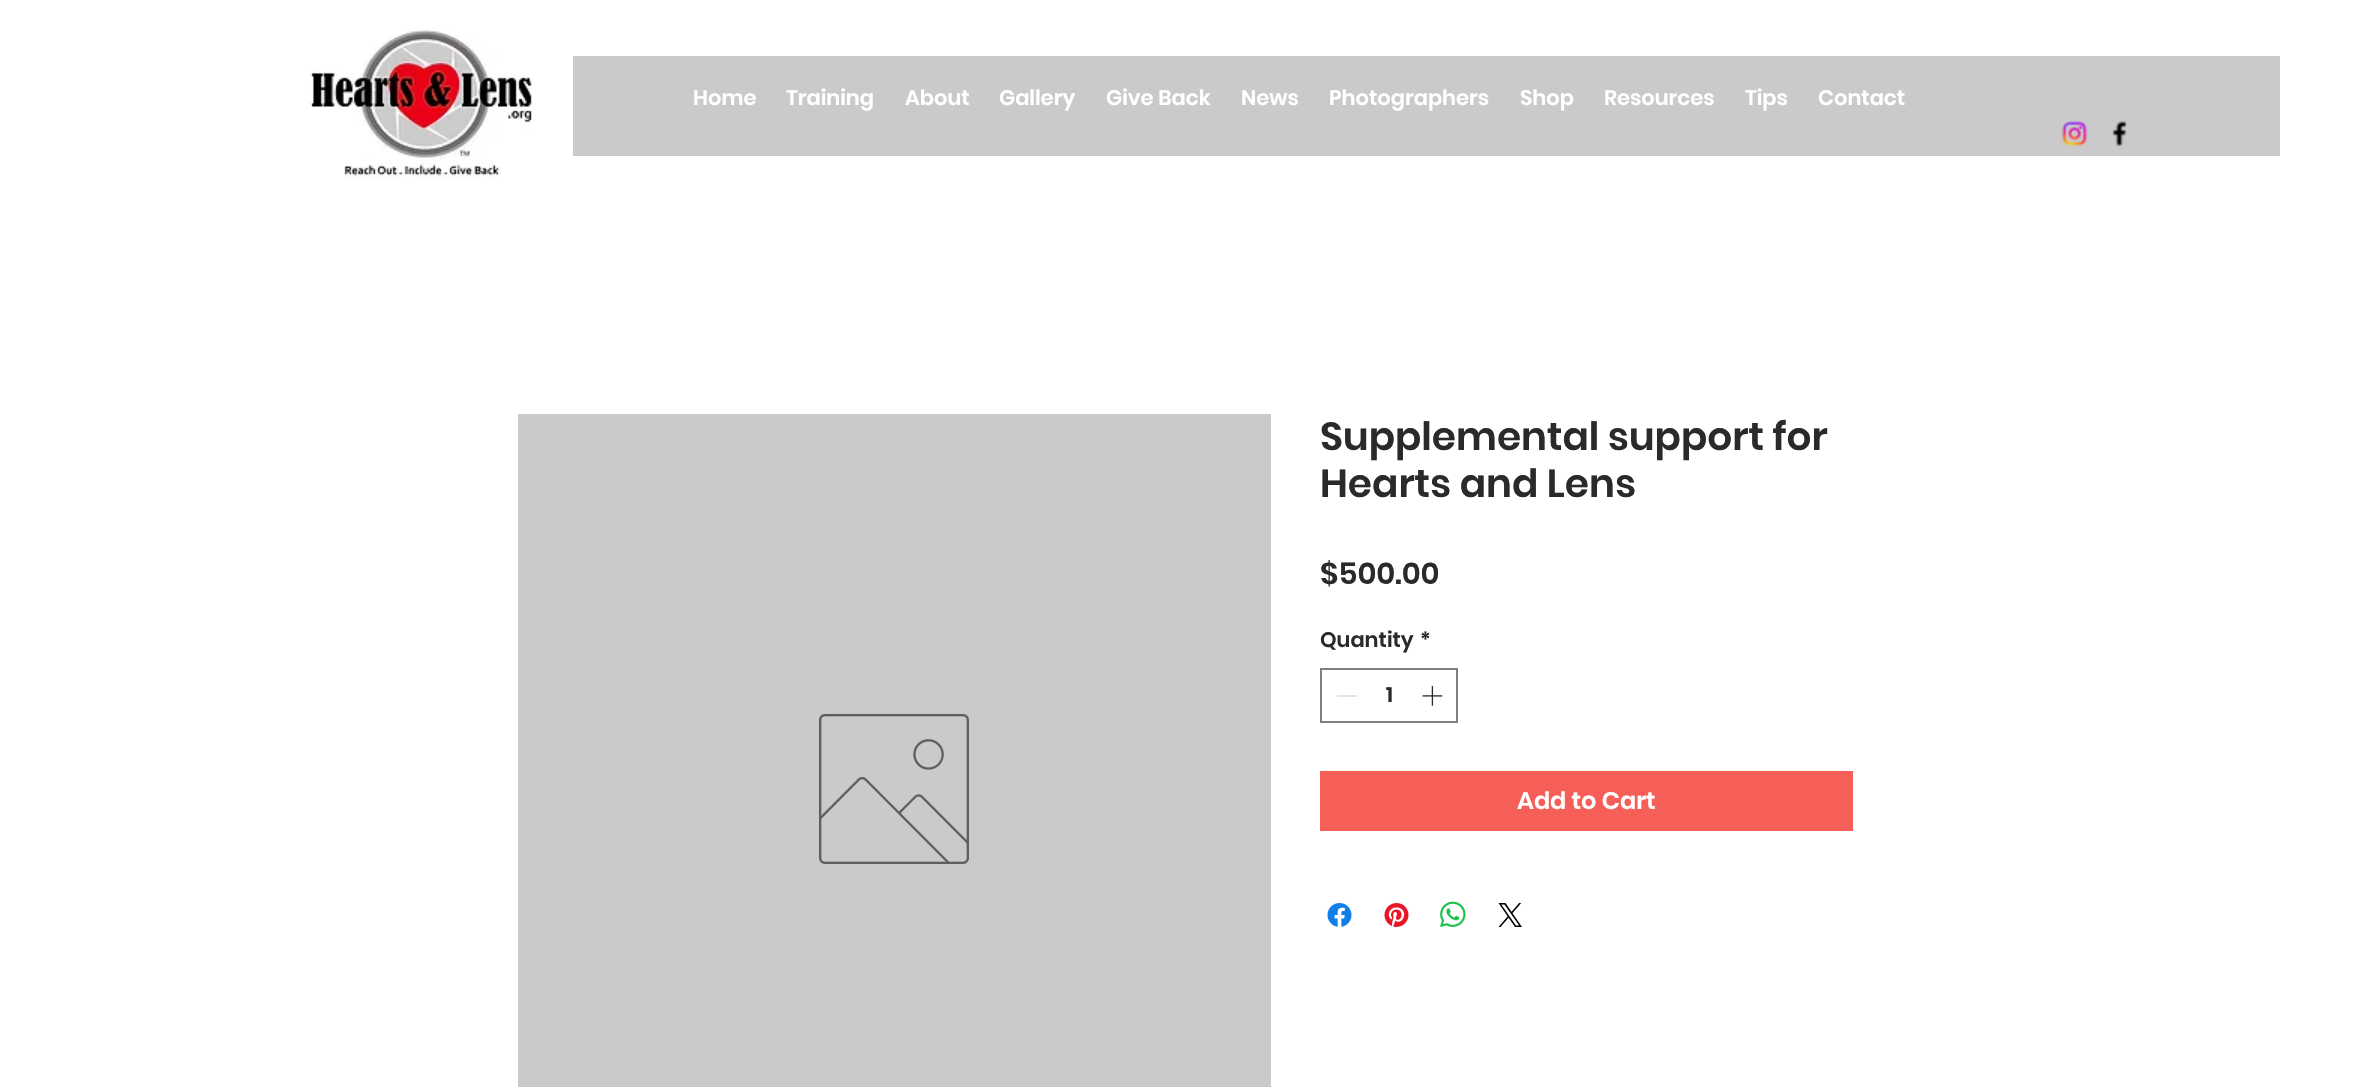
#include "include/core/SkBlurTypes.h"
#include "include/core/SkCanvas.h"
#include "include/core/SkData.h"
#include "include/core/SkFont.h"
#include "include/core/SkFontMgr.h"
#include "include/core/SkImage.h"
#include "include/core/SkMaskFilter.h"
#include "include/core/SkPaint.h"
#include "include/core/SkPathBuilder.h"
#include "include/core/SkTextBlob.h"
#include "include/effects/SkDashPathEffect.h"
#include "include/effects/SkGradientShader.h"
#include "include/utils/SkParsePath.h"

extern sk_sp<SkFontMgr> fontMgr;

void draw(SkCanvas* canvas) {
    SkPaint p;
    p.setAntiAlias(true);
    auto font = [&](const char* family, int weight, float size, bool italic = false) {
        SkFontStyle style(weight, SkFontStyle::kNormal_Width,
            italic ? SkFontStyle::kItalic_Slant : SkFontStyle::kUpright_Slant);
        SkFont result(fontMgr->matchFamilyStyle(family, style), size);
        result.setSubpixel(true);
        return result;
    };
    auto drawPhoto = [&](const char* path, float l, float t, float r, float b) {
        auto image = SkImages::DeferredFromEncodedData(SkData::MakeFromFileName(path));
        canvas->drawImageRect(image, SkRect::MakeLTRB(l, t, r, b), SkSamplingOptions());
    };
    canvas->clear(0xFFFFFFFF);
    drawPhoto("media/1.png", 309, 29, 532, 179);
    p.setColor(0xFFCACACA);
    canvas->drawRect(SkRect::MakeLTRB(573, 56, 2280, 156), p);
    drawPhoto("media/2.png", 2061, 120, 2088, 147);
    drawPhoto("media/3.png", 2112, 120, 2127, 147);
    auto font1 = font("Poppins", 600, 21);
    p.setColor(0xFFFFFFFF);
    {
        const struct { const char* s; float x, y; } items[] = {
            {"Home", 693, 105},
            {"Training", 786, 105},
            {"About", 905, 105},
            {"Gallery", 999, 105},
            {"Give Back", 1106, 105},
            {"News", 1241, 105},
            {"Photographers", 1329, 105},
            {"Shop", 1520, 105},
            {"Resources", 1604, 105},
            {"Tips", 1745, 105},
            {"Contact", 1818, 105},
        };
        for (auto [s, x, y] : items) {
            canvas->drawString(s, x, y, font1, p);
        }
    }
    p.setStyle(SkPaint::kStroke_Style);
    p.setStrokeWidth(2);
    p.setColor(0xFFCACACA);
    canvas->drawRect(SkRect::MakeLTRB(519, 415, 1270, 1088), p);
    p.setStyle(SkPaint::kFill_Style);
    canvas->drawRect(SkRect::MakeLTRB(520, 416, 1269, 1087), p);
    drawPhoto("media/4.png", 819, 714, 969, 864);
    auto font2 = font("Poppins", 600, 39);
    p.setColor(0xFF2A2A2A);
    canvas->drawString("Supplemental support for", 1320, 450, font2, p);
    canvas->drawString("Hearts and Lens", 1320, 497, font2, p);
    auto font3 = font("Poppins", 600, 30);
    canvas->drawString("$500.00", 1320, 584, font3, p);
    canvas->drawString("Quantity", 1320, 647, font1, p);
    canvas->drawString("*", 1420, 647, font1, p);
    p.setStyle(SkPaint::kStroke_Style);
    p.setColor(0xFF7F7F7F);
    canvas->drawRect(SkRect::MakeLTRB(1321, 669, 1457, 722), p);
    p.setStyle(SkPaint::kFill_Style);
    p.setColor(0xFFE3E3E3);
    canvas->drawRect(SkRect::MakeLTRB(1337, 695, 1357, 697), p);
    p.setColor(0xFF2A2A2A);
    canvas->drawString("1", 1386, 702, font1, p);
    drawPhoto("media/5.png", 1422, 686, 1443, 706);
    p.setColor(0xFFF65F58);
    canvas->drawRect(SkRect::MakeLTRB(1320, 771, 1853, 831), p);
    auto font4 = font("Poppins", 600, 24);
    p.setColor(0xFFFFFFFF);
    canvas->drawString("Add to Cart", 1517, 809, font4, p);
    drawPhoto("media/6.png", 1327, 903, 1352, 927);
    drawPhoto("media/7.png", 1384, 903, 1409, 927);
    drawPhoto("media/8.png", 1440, 901, 1466, 928);
    drawPhoto("media/9.png", 1498, 903, 1522, 927);
}
